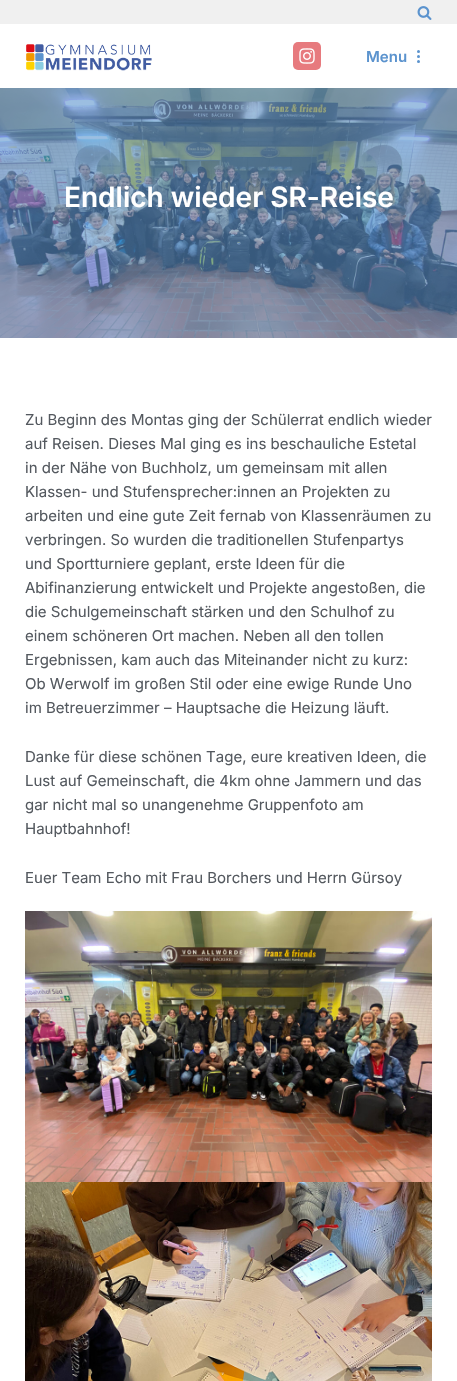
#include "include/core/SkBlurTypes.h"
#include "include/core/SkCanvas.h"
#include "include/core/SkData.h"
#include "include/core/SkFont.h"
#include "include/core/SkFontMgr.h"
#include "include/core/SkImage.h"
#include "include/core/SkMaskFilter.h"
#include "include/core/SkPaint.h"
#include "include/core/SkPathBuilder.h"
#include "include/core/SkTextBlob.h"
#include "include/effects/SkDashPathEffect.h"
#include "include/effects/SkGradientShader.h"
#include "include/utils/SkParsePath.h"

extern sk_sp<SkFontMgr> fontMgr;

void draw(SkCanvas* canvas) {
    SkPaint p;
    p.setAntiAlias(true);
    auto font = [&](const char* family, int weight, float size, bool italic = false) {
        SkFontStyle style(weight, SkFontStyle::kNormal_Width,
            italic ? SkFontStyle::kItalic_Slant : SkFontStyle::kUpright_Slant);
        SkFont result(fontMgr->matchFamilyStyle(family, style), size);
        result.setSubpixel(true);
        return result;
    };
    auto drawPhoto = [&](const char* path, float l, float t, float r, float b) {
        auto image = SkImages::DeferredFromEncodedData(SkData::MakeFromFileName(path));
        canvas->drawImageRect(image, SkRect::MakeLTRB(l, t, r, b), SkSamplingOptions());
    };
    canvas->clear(0xFFFFFFFF);
    p.setColor(0xFFF0F0F0);
    canvas->drawRect(SkRect::MakeLTRB(0, 0, 457, 24), p);
    drawPhoto("media/1.png", 417, 6, 432, 20);
    drawPhoto("media/2.png", 26, 44, 152, 71);
    p.setColor(0xFFE77A7E);
    canvas->drawRoundRect(SkRect::MakeLTRB(293, 42, 321, 70), 5, 5, p);
    drawPhoto("media/3.png", 299, 48, 315, 64);
    auto font1 = font("Inter", 600, 15);
    p.setColor(0xFF5B93CE);
    canvas->drawString("Menu", 366, 62, font1, p);
    canvas->drawCircle(418.5f, 56.5f, 1.5f, p);
    canvas->drawCircle(418.5f, 51.5f, 1.5f, p);
    canvas->drawCircle(418.5f, 61.5f, 1.5f, p);
    drawPhoto("media/4.png", 0, 88, 457, 338);
    auto font2 = font("Inter", 600, 28);
    p.setColor(0xFFFFFFFF);
    canvas->drawString("Endlich wieder SR-Reise", 64, 207, font2, p);
    auto font3 = font("Inter", 400, 15);
    p.setColor(0xFF54595F);
    {
        const struct { const char* s; float x, y; } items[] = {
            {"Zu Beginn des Montas ging der Schülerrat endlich wieder", 25, 425},
            {"auf Reisen. Dieses Mal ging es ins beschauliche Estetal", 25, 449},
            {"in der Nähe von Buchholz, um gemeinsam mit allen", 25, 473},
            {"Klassen- und Stufensprecher:innen an Projekten zu", 25, 497},
            {"arbeiten und eine gute Zeit fernab von Klassenräumen zu", 25, 521},
            {"verbringen. So wurden die traditionellen Stufenpartys", 25, 545},
            {"und Sportturniere geplant, erste Ideen für die", 25, 569},
            {"Abifinanzierung entwickelt und Projekte angestoßen, die", 25, 593},
            {"die Schulgemeinschaft stärken und den Schulhof zu", 25, 617},
            {"einem schöneren Ort machen. Neben all den tollen", 25, 641},
            {"Ergebnissen, kam auch das Miteinander nicht zu kurz:", 25, 665},
            {"Ob Werwolf im großen Stil oder eine ewige Runde Uno", 25, 689},
            {"im Betreuerzimmer – Hauptsache die Heizung läuft.", 25, 713},
            {"Danke für diese schönen Tage, eure kreativen Ideen, die", 25, 762},
            {"Lust auf Gemeinschaft, die 4km ohne Jammern und das", 25, 786},
            {"gar nicht mal so unangenehme Gruppenfoto am", 25, 810},
            {"Hauptbahnhof!", 25, 834},
            {"Euer Team Echo mit Frau Borchers und Herrn Gürsoy", 25, 883},
        };
        for (auto [s, x, y] : items) {
            canvas->drawString(s, x, y, font3, p);
        }
    }
    drawPhoto("media/5.png", 25, 911, 432, 1182);
    drawPhoto("media/6.png", 25, 1182, 432, 1381);
}
